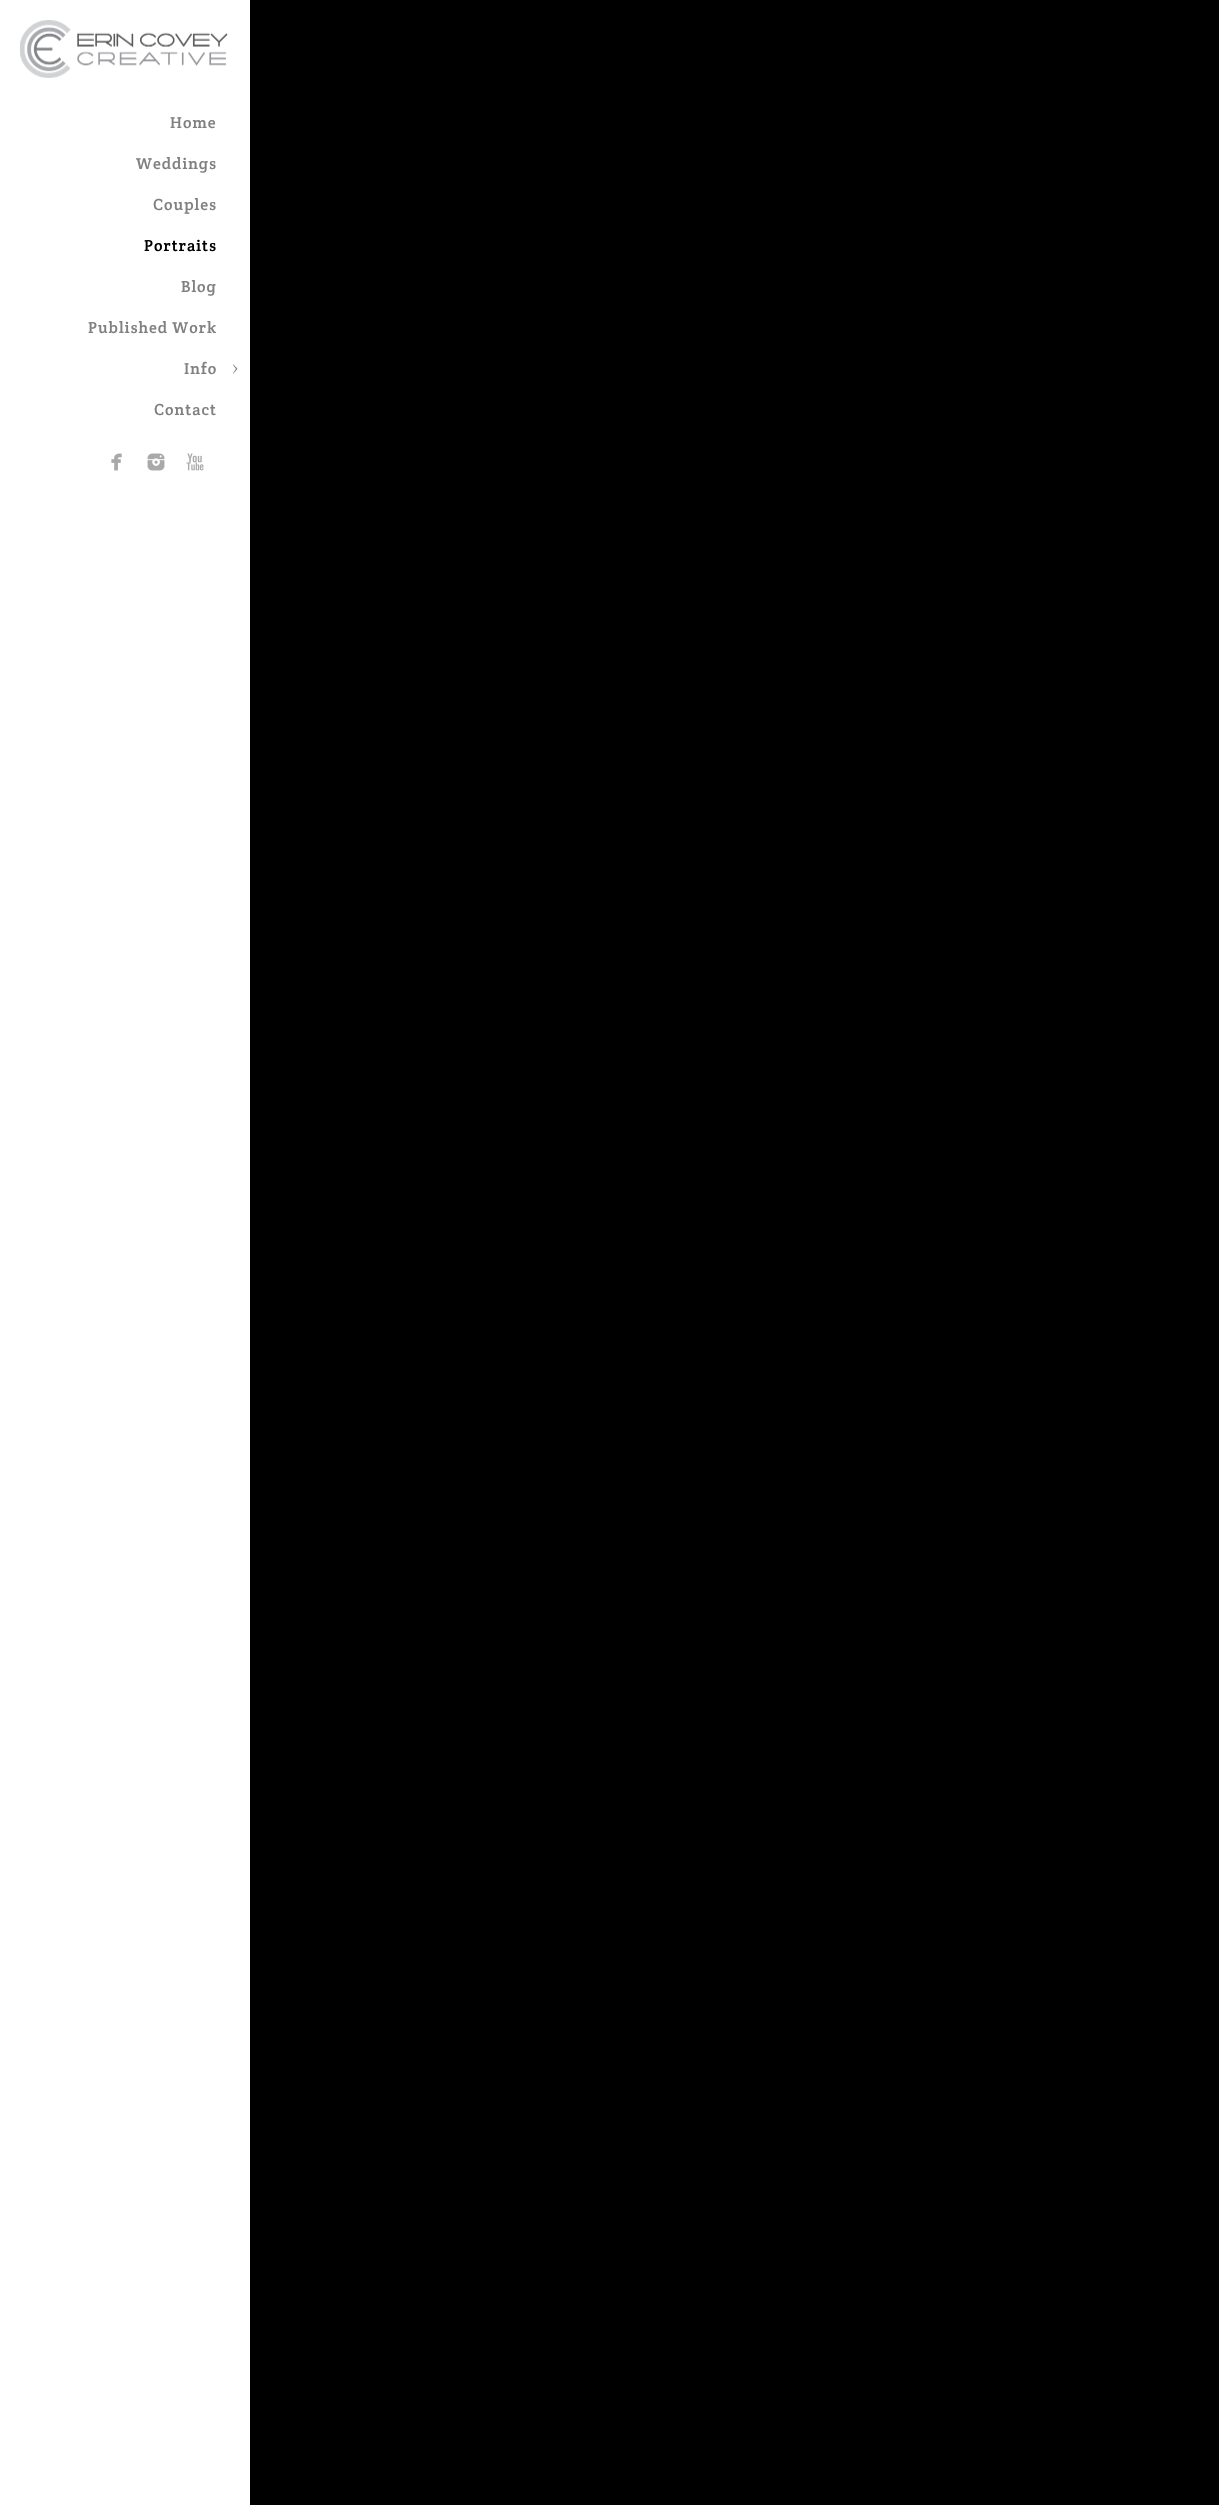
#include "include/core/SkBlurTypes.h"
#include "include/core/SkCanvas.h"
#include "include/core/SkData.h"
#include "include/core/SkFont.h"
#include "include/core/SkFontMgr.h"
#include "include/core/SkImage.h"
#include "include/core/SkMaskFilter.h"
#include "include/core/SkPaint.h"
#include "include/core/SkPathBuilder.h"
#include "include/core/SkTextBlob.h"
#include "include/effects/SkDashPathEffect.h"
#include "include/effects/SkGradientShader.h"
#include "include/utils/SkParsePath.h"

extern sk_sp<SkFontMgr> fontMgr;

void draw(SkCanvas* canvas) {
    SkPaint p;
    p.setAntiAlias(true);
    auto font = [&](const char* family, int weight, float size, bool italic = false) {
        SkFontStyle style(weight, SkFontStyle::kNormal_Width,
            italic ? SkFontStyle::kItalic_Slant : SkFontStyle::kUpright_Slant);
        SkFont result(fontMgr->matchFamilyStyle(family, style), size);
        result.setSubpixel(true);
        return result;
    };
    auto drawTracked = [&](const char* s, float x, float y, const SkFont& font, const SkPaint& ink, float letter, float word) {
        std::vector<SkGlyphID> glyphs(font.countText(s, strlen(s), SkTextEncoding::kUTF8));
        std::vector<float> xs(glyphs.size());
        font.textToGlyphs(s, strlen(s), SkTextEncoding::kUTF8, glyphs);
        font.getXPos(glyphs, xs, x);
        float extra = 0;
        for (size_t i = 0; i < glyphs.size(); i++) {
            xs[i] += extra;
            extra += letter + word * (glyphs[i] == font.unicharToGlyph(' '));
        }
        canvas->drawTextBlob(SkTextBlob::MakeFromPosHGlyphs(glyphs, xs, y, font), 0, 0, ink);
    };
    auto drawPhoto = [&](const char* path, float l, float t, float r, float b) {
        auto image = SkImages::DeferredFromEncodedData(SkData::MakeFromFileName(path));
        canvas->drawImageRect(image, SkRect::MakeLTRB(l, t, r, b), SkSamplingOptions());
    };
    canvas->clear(0xFF000000);
    p.setColor(0xFFFFFFFF);
    canvas->drawRect(SkRect::MakeLTRB(0, 0, 250, 2505), p);
    drawPhoto("media/1.png", 20, 20, 228, 78);
    auto font1 = font("Crete Round", 400, 16);
    p.setColor(0xFF808080);
    {
        const struct { const char* s; float x, y; } items[] = {
            {"Home", 170, 128},
            {"Weddings", 136, 169},
            {"Couples", 153, 210},
        };
        for (auto [s, x, y] : items) {
            drawTracked(s, x, y, font1, p, 1, 0);
        }
    }
    p.setColor(0xFF000000);
    drawTracked("Portraits", 144, 251, font1, p, 1, 0);
    p.setColor(0xFF808080);
    {
        const struct { const char* s; float x, y; } items[] = {
            {"Blog", 181, 292},
            {"Published Work", 88, 333},
            {"Info", 184, 374},
        };
        for (auto [s, x, y] : items) {
            drawTracked(s, x, y, font1, p, 1, 0);
        }
    }
    drawPhoto("media/2.png", 232, 364, 238, 374);
    drawTracked("Contact", 154, 415, font1, p, 1, 0);
    drawPhoto("media/3.png", 111, 453, 122, 471);
    drawPhoto("media/4.png", 147, 453, 165, 471);
    drawPhoto("media/5.png", 186, 453, 204, 471);
}
